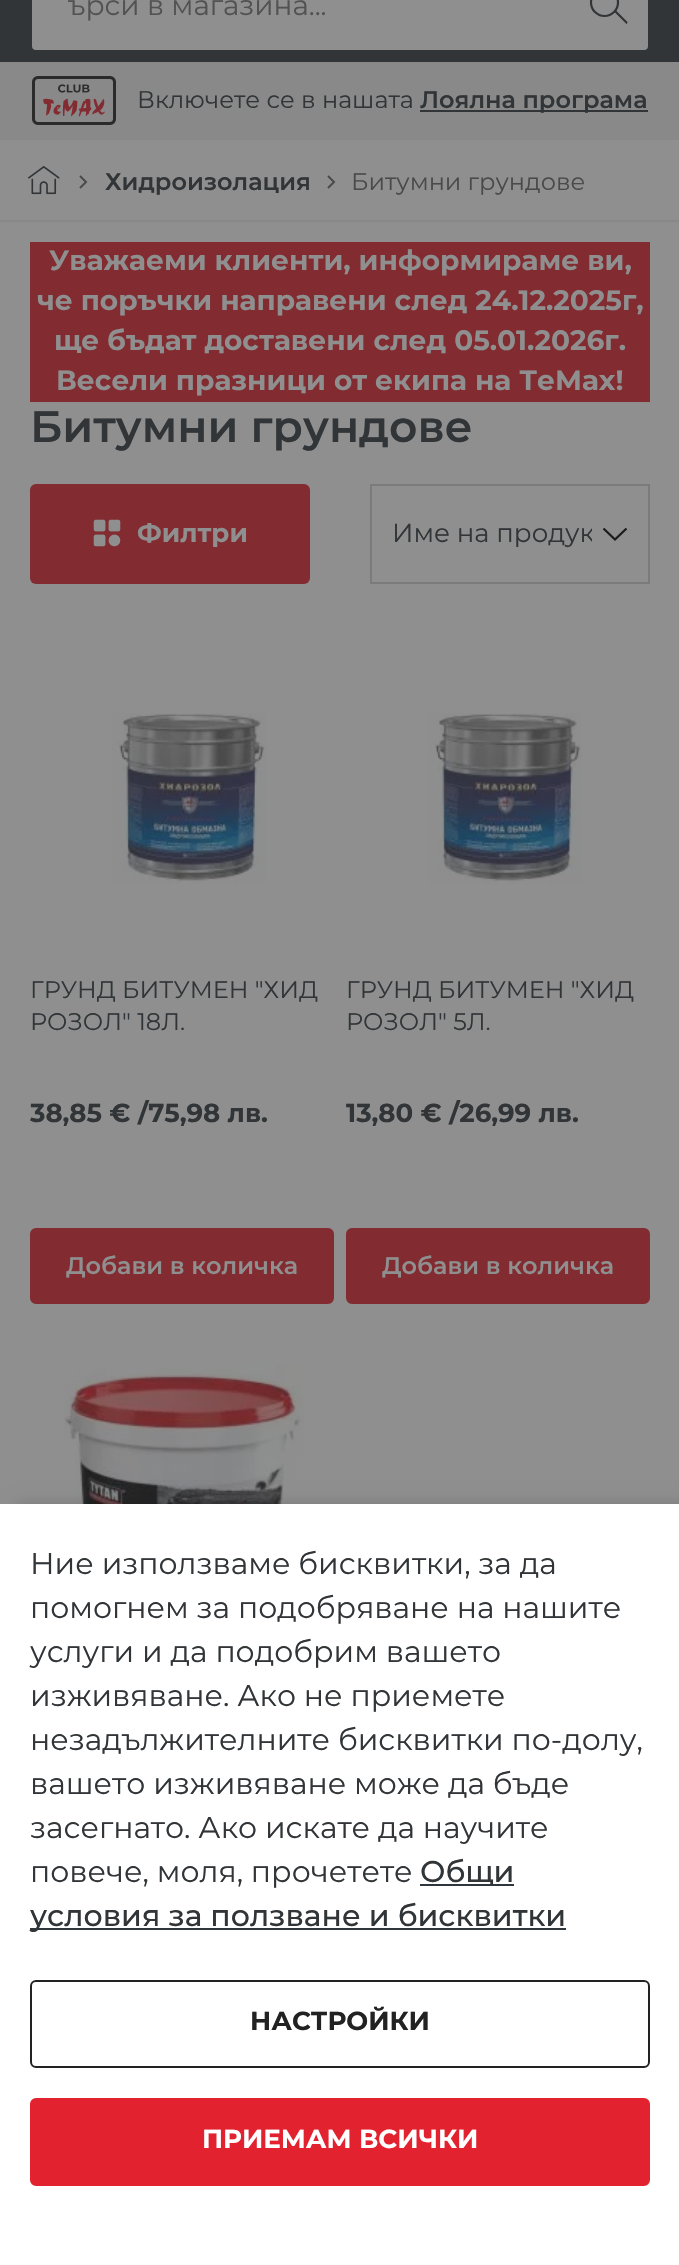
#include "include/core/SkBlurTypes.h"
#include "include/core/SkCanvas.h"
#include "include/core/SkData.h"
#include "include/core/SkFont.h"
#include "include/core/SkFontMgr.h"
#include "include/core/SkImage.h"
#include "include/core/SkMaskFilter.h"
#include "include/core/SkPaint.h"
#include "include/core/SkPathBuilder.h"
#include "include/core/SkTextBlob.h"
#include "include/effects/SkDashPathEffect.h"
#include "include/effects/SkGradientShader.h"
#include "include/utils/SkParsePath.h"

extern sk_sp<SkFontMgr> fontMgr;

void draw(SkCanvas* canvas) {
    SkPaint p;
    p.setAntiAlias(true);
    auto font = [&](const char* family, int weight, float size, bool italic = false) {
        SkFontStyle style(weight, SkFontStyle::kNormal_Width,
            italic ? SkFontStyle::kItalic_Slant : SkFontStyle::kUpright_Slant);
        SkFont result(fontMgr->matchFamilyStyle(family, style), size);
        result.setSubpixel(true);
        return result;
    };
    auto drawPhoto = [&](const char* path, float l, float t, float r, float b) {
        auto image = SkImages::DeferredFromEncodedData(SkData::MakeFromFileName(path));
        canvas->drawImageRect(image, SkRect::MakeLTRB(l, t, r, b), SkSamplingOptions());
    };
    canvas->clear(0xFF8F8F8F);
    p.setColor(0xFF313537);
    canvas->drawRect(SkRect::MakeLTRB(0, 0, 679, 62), p);
    p.setColor(0xFF8F8F8F);
    canvas->drawRoundRect(SkRect::MakeLTRB(31, -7, 649, 51), 5, 5, p);
    p.setStyle(SkPaint::kStroke_Style);
    p.setStrokeWidth(2);
    p.setColor(0xFF313537);
    canvas->drawRoundRect(SkRect::MakeLTRB(31, -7, 649, 51), 5, 5, p);
    auto font1 = font("Montserrat", 400, 28);
    p.setStyle(SkPaint::kFill_Style);
    p.setColor(0xFF525252);
    canvas->drawString("ърси в магазина...", 68, 15, font1, p);
    p.setStyle(SkPaint::kStroke_Style);
    p.setStrokeWidth(2.2f);
    p.setColor(0xFF313537);
    canvas->drawCircle(604.5f, 2.5f, 13.5f, p);
    canvas->save();
    canvas->clipPath(SkPathBuilder().moveTo(594, -14).lineTo(622, -14).cubicTo(625.5f, -14, 628, -11.5f, 628, -8).lineTo(628, 20).cubicTo(628, 23.5f, 625.5f, 26, 622, 26).lineTo(594, 26).cubicTo(590.5f, 26, 588, 23.5f, 588, 20).lineTo(588, -8).cubicTo(588, -11.5f, 590.5f, -14, 594, -14).close().detach(), true);
    p.setStrokeCap(SkPaint::kRound_Cap);
    canvas->drawPath(SkPathBuilder().moveTo(615.5f, 11.5f).lineTo(627, 23).detach(), p);
    canvas->restore();
    p.setStyle(SkPaint::kFill_Style);
    p.setColor(0xFF898989);
    canvas->drawRect(SkRect::MakeLTRB(0, 62, 679, 140), p);
    drawPhoto("media/1.png", 32, 76, 116, 125);
    auto font2 = font("Montserrat", 400, 24);
    p.setColor(0xFF313537);
    canvas->drawString("Включете се в нашата", 137, 108, font2, p);
    canvas->drawRect(SkRect::MakeLTRB(420, 110, 648, 112), p);
    auto font3 = font("Montserrat", 600, 24);
    canvas->drawString("Лоялна програма", 420, 108, font3, p);
    p.setColor(0xFF888888);
    canvas->drawRect(SkRect::MakeLTRB(0, 220, 679, 222), p);
    drawPhoto("media/2.png", 28, 166, 60, 195);
    p.setStyle(SkPaint::kStroke_Style);
    p.setStrokeWidth(2);
    p.setStrokeCap(SkPaint::kButt_Cap);
    p.setColor(0xFF4A4A4A);
    canvas->drawPath(SkPathBuilder().moveTo(80, 176).lineTo(86, 182).lineTo(80, 188).detach(), p);
    p.setStyle(SkPaint::kFill_Style);
    p.setColor(0xFF313537);
    canvas->drawString("Хидроизолация", 105, 190, font3, p);
    p.setStyle(SkPaint::kStroke_Style);
    p.setColor(0xFF4A4A4A);
    canvas->drawPath(SkPathBuilder().moveTo(328, 176).lineTo(334, 182).lineTo(328, 188).detach(), p);
    p.setStyle(SkPaint::kFill_Style);
    canvas->drawString("Битумни грундове", 351, 190, font2, p);
    {
        const SkColor colors[] = {0xFF8F8F8F, 0x008F8F8F};
        const float stops[] = {0.25f, 1};
        const SkPoint ends[] = {{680, 183}, {576, 183}};
        p.setShader(SkGradientShader::MakeLinear(ends, colors, stops, 2, SkTileMode::kClamp));
        p.setAlpha(255);
    }
    canvas->drawRect(SkRect::MakeLTRB(578, 178, 585, 190), p);
    p.setShader(nullptr);
    p.setColor(0xFF822B31);
    canvas->drawRect(SkRect::MakeLTRB(30, 242, 650, 402), p);
    auto font4 = font("Montserrat", 700, 28);
    p.setColor(0xFF8F8F8F);
    {
        const struct { const char* s; float x, y; } items[] = {
            {"Уважаеми клиенти, информираме ви,", 49, 270},
            {"че поръчки направени след 24.12.2025г,", 37, 310},
            {"ще бъдат доставени след 05.01.2026г.", 54, 350},
            {"Весели празници от екипа на ТеМах!", 56, 390},
        };
        for (auto [s, x, y] : items) {
            canvas->drawString(s, x, y, font4, p);
        }
    }
    auto font5 = font("Montserrat", 600, 44);
    p.setColor(0xFF313537);
    canvas->drawString("Битумни грундове", 30, 442, font5, p);
    p.setColor(0xFF822B31);
    canvas->drawRoundRect(SkRect::MakeLTRB(30, 484, 310, 584), 6, 6, p);
    drawPhoto("media/3.png", 93, 519, 121, 547);
    auto font6 = font("Montserrat", 700, 26);
    p.setColor(0xFF8F8F8F);
    canvas->drawString("Филтри", 137, 542, font6, p);
    p.setStyle(SkPaint::kStroke_Style);
    p.setStrokeWidth(2.3f);
    p.setColor(0xFF1C1C1C);
    canvas->drawPath(SkPathBuilder().moveTo(603.5f, 528.5f).lineTo(615, 539.5f).lineTo(626.5f, 528.5f).detach(), p);
    p.setStrokeWidth(2);
    p.setColor(0xFF7B7B7B);
    canvas->drawRect(SkRect::MakeLTRB(371, 485, 649, 583), p);
    canvas->save();
    canvas->clipRect(SkRect::MakeLTRB(392, 486, 592, 586));
    auto font7 = font("Montserrat", 400, 26);
    p.setStyle(SkPaint::kFill_Style);
    p.setColor(0xFF313537);
    canvas->drawString("Име на продук", 392, 542, font7, p);
    canvas->restore();
    drawPhoto("media/4.png", 112, 713, 266, 884);
    canvas->drawString("ГРУНД БИТУМЕН \"ХИД", 30, 998, font2, p);
    canvas->drawString("РОЗОЛ\" 18Л.", 30, 1030, font2, p);
    canvas->drawString("38,85 € /75,98 лв.", 30, 1122, font6, p);
    p.setColor(0xFF822B31);
    canvas->drawRoundRect(SkRect::MakeLTRB(31, 1229, 333, 1303), 5, 5, p);
    p.setStyle(SkPaint::kStroke_Style);
    canvas->drawRoundRect(SkRect::MakeLTRB(31, 1229, 333, 1303), 5, 5, p);
    p.setStyle(SkPaint::kFill_Style);
    p.setColor(0xFF8F8F8F);
    canvas->drawString("Добави в количка", 66, 1274, font3, p);
    drawPhoto("media/4.png", 428, 713, 582, 884);
    p.setColor(0xFF313537);
    canvas->drawString("ГРУНД БИТУМЕН \"ХИД", 346, 998, font2, p);
    canvas->drawString("РОЗОЛ\" 5Л.", 346, 1030, font2, p);
    canvas->drawString("13,80 € /26,99 лв.", 346, 1122, font6, p);
    p.setColor(0xFF822B31);
    canvas->drawRoundRect(SkRect::MakeLTRB(347, 1229, 649, 1303), 5, 5, p);
    p.setStyle(SkPaint::kStroke_Style);
    canvas->drawRoundRect(SkRect::MakeLTRB(347, 1229, 649, 1303), 5, 5, p);
    p.setStyle(SkPaint::kFill_Style);
    p.setColor(0xFF8F8F8F);
    canvas->drawString("Добави в количка", 382, 1274, font3, p);
    drawPhoto("media/5.png", 64, 1364, 304, 1504);
    p.setColor(0x26000000);
    p.setMaskFilter(SkMaskFilter::MakeBlur(kNormal_SkBlurStyle, 8));
    canvas->drawRect(SkRect::MakeLTRB(16, 1504, 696, 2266), p);
    p.setMaskFilter(nullptr);
    p.setColor(0xFFFFFFFF);
    canvas->drawRect(SkRect::MakeLTRB(0, 1504, 679, 2265), p);
    auto font8 = font("Montserrat", 400, 30);
    p.setColor(0xFF313537);
    {
        const struct { const char* s; float x, y; } items[] = {
            {"Ние използваме бисквитки, за да", 30, 1574},
            {"помогнем за подобряване на нашите", 30, 1618},
            {"услуги и да подобрим вашето", 30, 1662},
            {"изживяване. Ако не приемете", 30, 1706},
            {"незадължителните бисквитки по-долу,", 30, 1750},
            {"вашето изживяване може да бъде", 30, 1794},
            {"засегнато. Ако искате да научите", 30, 1838},
            {"повече, моля, прочетете", 30, 1882},
        };
        for (auto [s, x, y] : items) {
            canvas->drawString(s, x, y, font8, p);
        }
    }
    p.setColor(0xFF2F373C);
    canvas->drawRect(SkRect::MakeLTRB(420, 1884, 514, 1886), p);
    auto font9 = font("Montserrat", 500, 30);
    p.setColor(0xFF313537);
    canvas->drawString("Общи", 420, 1882, font9, p);
    p.setColor(0xFF2F373C);
    canvas->drawRect(SkRect::MakeLTRB(30, 1928, 566, 1930), p);
    p.setColor(0xFF313537);
    canvas->drawString("условия за ползване и бисквитки", 30, 1926, font9, p);
    p.setStyle(SkPaint::kStroke_Style);
    p.setColor(0xFF222222);
    canvas->drawRoundRect(SkRect::MakeLTRB(31, 1981, 649, 2067), 5, 5, p);
    p.setStyle(SkPaint::kFill_Style);
    canvas->drawString("НАСТРОЙКИ", 250, 2030, font6, p);
    p.setColor(0xFFE2222E);
    canvas->drawRoundRect(SkRect::MakeLTRB(31, 2099, 649, 2185), 5, 5, p);
    p.setStyle(SkPaint::kStroke_Style);
    canvas->drawRoundRect(SkRect::MakeLTRB(31, 2099, 649, 2185), 5, 5, p);
    p.setStyle(SkPaint::kFill_Style);
    p.setColor(0xFFFFFFFF);
    canvas->drawString("ПРИЕМАМ ВСИЧКИ", 202, 2148, font6, p);
}
